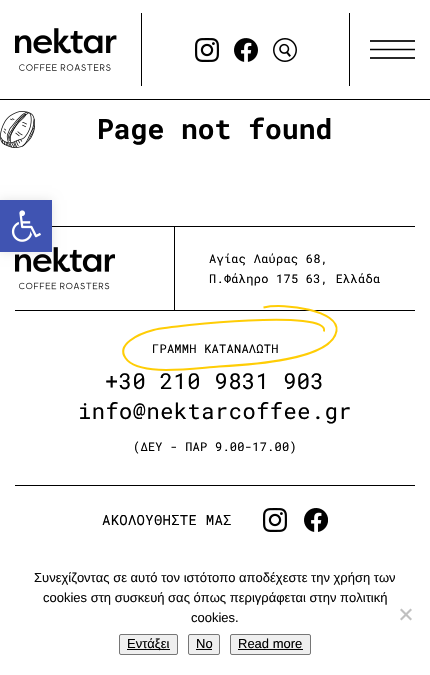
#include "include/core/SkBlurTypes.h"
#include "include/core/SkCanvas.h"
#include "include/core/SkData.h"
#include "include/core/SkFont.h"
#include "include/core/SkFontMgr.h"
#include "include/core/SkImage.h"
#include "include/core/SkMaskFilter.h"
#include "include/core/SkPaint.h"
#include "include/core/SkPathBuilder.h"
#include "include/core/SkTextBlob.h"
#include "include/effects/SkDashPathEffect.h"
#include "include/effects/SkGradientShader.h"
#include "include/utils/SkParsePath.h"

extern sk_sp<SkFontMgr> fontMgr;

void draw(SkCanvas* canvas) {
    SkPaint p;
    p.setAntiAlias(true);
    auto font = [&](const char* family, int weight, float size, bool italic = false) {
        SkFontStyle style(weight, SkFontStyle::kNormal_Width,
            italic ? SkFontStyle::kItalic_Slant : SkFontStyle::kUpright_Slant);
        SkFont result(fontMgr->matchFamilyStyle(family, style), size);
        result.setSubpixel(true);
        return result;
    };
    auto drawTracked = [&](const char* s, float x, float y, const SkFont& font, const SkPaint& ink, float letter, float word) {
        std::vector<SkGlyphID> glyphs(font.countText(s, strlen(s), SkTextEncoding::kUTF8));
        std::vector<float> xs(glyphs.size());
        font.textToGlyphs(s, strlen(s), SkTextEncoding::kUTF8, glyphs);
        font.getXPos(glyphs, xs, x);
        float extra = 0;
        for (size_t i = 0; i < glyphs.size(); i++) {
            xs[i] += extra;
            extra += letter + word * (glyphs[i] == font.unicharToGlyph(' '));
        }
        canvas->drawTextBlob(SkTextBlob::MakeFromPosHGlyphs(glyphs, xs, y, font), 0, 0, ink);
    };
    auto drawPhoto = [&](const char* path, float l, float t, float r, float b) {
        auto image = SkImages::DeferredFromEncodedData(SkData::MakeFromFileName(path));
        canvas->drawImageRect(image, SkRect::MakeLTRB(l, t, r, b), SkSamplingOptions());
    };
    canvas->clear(0xFFFFFFFF);
    p.setColor(0xFF000000);
    canvas->drawRect(SkRect::MakeLTRB(52, 226, 415, 227), p);
    drawPhoto("media/7.png", 15, 247, 115, 290);
    p.setColor(0x1A000000);
    p.setMaskFilter(SkMaskFilter::MakeBlur(kNormal_SkBlurStyle, 5));
    canvas->drawRect(SkRect::MakeLTRB(0, 200, 52, 252), p);
    p.setMaskFilter(nullptr);
    p.setColor(0xFF4054B2);
    canvas->drawRect(SkRect::MakeLTRB(0, 200, 52, 252), p);
    drawPhoto("media/1.png", 11, 210, 41, 242);
    p.setColor(0xFF000000);
    canvas->drawRect(SkRect::MakeLTRB(0, 99, 430, 100), p);
    drawPhoto("media/2.png", 15, 28, 117, 71);
    canvas->drawRect(SkRect::MakeLTRB(349, 13, 350, 86), p);
    canvas->drawRect(SkRect::MakeLTRB(141, 13, 142, 86), p);
    drawPhoto("media/3.png", 195, 38, 219, 62);
    drawPhoto("media/4.png", 234, 38, 258, 62);
    drawPhoto("media/5.png", 273, 38, 297, 62);
    p.setColor(0xFF272727);
    canvas->drawRect(SkRect::MakeLTRB(370, 40, 415, 42), p);
    p.setStyle(SkPaint::kStroke_Style);
    p.setStrokeWidth(1.7f);
    p.setColor(0xFF010101);
    canvas->drawPath(SkPathBuilder().moveTo(370, 49.5f).lineTo(415, 49.5f).detach(), p);
    p.setStyle(SkPaint::kFill_Style);
    p.setColor(0xFF272727);
    canvas->drawRect(SkRect::MakeLTRB(370, 57, 415, 59), p);
    drawPhoto("media/6.png", 0, 111, 35, 148);
    auto font1 = font("Roboto Mono", 700, 28);
    p.setColor(0xFF000000);
    canvas->drawString("Page not found", 97, 139, font1, p);
    canvas->drawRect(SkRect::MakeLTRB(15, 485, 415, 486), p);
    canvas->drawRect(SkRect::MakeLTRB(174, 227, 175, 310), p);
    auto font2 = font("Roboto Mono", 400, 12);
    drawTracked("Αγίας Λαύρας 68,", 209, 263, font2, p, 0.25f, 0);
    drawTracked("Π.Φάληρο 175 63, Ελλάδα", 209, 283, font2, p, 0.25f, 0);
    canvas->drawRect(SkRect::MakeLTRB(15, 310, 415, 311), p);
    drawTracked("ΓΡΑΜΜΗ ΚΑΤΑΝΑΛΩΤΗ", 152, 353, font2, p, 0.25f, 0);
    p.setStyle(SkPaint::kStroke_Style);
    p.setStrokeWidth(2);
    p.setColor(0xFFFFCD05);
    canvas->drawPath(SkPathBuilder().moveTo(324, 331.5f).cubicTo(330.5f, 308.5f, 173.5f, 325.5f, 153.5f, 330).cubicTo(138, 334, 116, 344.5f, 125.5f, 358).cubicTo(138, 377, 194.5f, 368, 219, 366.5f).cubicTo(247.5f, 365, 331.5f, 360.5f, 336.5f, 331).cubicTo(340, 310.5f, 284.5f, 302.5f, 263.5f, 307.5f).detach(), p);
    auto font3 = font("Roboto Mono", 400, 22);
    p.setStyle(SkPaint::kFill_Style);
    p.setColor(0xFF000000);
    drawTracked("+30 210 9831 903", 105, 389, font3, p, 0.5f, 0);
    drawTracked("info@nektarcοffee.gr", 78, 419, font3, p, 0.5f, 0);
    drawTracked("(ΔΕΥ - ΠΑΡ 9.00-17.00)", 133, 451, font2, p, 0.25f, 0);
    auto font4 = font("Roboto Mono", 400, 14);
    drawTracked("ΑΚΟΛΟΥΘΗΣΤΕ ΜΑΣ", 102, 525, font4, p, 0.25f, 0);
    drawPhoto("media/8.png", 263, 508, 287, 532);
    drawPhoto("media/9.png", 304, 508, 328, 532);
    auto font5 = font("Liberation Sans", 400, 13);
    p.setColor(0xFF0A0A0A);
    {
        const struct { const char* s; float x, y; } items[] = {
            {"Συνεχίζοντας σε αυτό τον ιστότοπο αποδέχεστε την χρήση των", 34, 582},
            {"cookies στη συσκευή σας όπως περιγράφεται στην πολιτική", 43, 602},
            {"cookies.", 191, 622},
        };
        for (auto [s, x, y] : items) {
            canvas->drawString(s, x, y, font5, p);
        }
    }
    p.setColor(0xFFC0C0C0);
    canvas->drawPath(SkPathBuilder().moveTo(410.5f, 608.5f).lineTo(412, 610).lineTo(401.5f, 620.5f).lineTo(400, 619).close().detach(), p);
    canvas->drawPath(SkPathBuilder().moveTo(400, 610).lineTo(401.5f, 608.5f).lineTo(412, 619).lineTo(410.5f, 620.5f).close().detach(), p);
    p.setColor(0xFFEFEFEF);
    canvas->drawRoundRect(SkRect::MakeLTRB(119.5f, 634.5f, 177.5f, 654.5f), 1.5f, 1.5f, p);
    p.setStyle(SkPaint::kStroke_Style);
    p.setStrokeWidth(1);
    p.setColor(0xFF767676);
    canvas->drawRoundRect(SkRect::MakeLTRB(119.5f, 634.5f, 177.5f, 654.5f), 1.5f, 1.5f, p);
    p.setStyle(SkPaint::kFill_Style);
    p.setColor(0xFF000000);
    canvas->drawRect(SkRect::MakeLTRB(127, 649, 170, 650), p);
    canvas->drawString("Εντάξει", 127, 648, font5, p);
    p.setColor(0xFFEFEFEF);
    canvas->drawRoundRect(SkRect::MakeLTRB(188.5f, 634.5f, 219.5f, 654.5f), 1.5f, 1.5f, p);
    p.setStyle(SkPaint::kStroke_Style);
    p.setColor(0xFF767676);
    canvas->drawRoundRect(SkRect::MakeLTRB(188.5f, 634.5f, 219.5f, 654.5f), 1.5f, 1.5f, p);
    p.setStyle(SkPaint::kFill_Style);
    p.setColor(0xFF000000);
    canvas->drawString("No", 196, 648, font5, p);
    canvas->drawRect(SkRect::MakeLTRB(196, 649, 212, 650), p);
    p.setColor(0xFFEFEFEF);
    canvas->drawRoundRect(SkRect::MakeLTRB(230.5f, 634.5f, 310.5f, 654.5f), 1.5f, 1.5f, p);
    p.setStyle(SkPaint::kStroke_Style);
    p.setColor(0xFF767676);
    canvas->drawRoundRect(SkRect::MakeLTRB(230.5f, 634.5f, 310.5f, 654.5f), 1.5f, 1.5f, p);
    p.setStyle(SkPaint::kFill_Style);
    p.setColor(0xFF000000);
    canvas->drawString("Read more", 238, 648, font5, p);
    canvas->drawRect(SkRect::MakeLTRB(238, 649, 303, 650), p);
}
